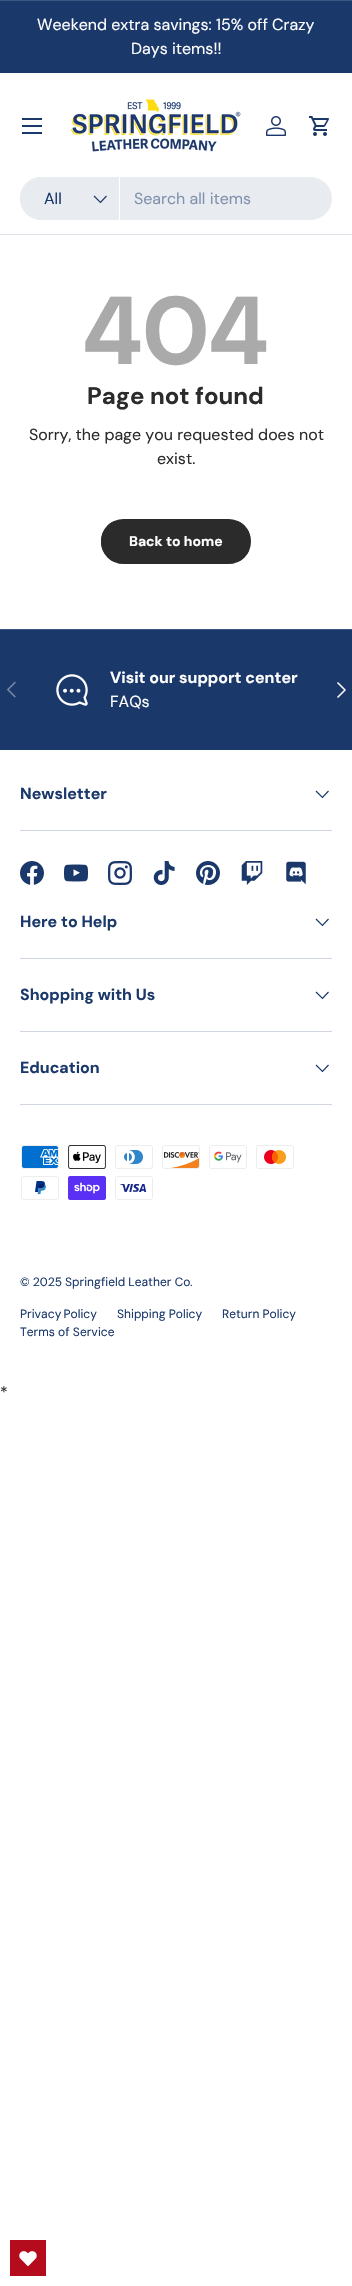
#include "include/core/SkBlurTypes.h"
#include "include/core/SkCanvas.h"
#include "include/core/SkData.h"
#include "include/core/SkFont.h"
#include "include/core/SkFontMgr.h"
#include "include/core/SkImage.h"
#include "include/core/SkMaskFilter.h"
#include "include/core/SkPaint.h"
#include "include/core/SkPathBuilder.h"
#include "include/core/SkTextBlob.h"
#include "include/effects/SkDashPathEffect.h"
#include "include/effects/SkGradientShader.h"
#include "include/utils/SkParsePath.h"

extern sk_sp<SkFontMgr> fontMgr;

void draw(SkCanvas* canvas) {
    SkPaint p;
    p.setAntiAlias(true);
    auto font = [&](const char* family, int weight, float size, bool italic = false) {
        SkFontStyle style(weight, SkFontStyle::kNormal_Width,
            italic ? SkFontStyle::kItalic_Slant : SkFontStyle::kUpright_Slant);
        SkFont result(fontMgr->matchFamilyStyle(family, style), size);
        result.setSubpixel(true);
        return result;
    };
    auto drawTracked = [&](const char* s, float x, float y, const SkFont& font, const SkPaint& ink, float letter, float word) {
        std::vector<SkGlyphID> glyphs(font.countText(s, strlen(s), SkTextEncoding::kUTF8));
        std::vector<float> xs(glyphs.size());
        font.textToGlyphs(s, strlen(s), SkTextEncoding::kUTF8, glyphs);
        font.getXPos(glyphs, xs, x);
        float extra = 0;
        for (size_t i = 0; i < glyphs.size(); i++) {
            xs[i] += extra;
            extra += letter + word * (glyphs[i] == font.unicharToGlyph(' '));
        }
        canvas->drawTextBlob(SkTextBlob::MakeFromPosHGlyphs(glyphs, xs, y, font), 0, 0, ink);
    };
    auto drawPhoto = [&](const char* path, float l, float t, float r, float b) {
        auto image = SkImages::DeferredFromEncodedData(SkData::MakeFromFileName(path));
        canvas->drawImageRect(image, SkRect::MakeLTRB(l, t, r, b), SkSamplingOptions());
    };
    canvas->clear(0xFFFFFFFF);
    p.setColor(0xFF1B386B);
    canvas->drawRect(SkRect::MakeLTRB(0, 1, 352, 73), p);
    p.setColor(0xFF3D5681);
    canvas->drawRect(SkRect::MakeLTRB(0, 0, 352, 1), p);
    auto font1 = font("DM Sans", 400, 16);
    p.setColor(0xFFFFFFFF);
    canvas->drawString("Weekend extra savings: 15% off Crazy", 37, 30, font1, p);
    canvas->drawString("Days items!!", 131, 54, font1, p);
    {
        const struct { float l, t, r, b; SkColor color; } items[] = {
            {0, 234, 352, 235, 0xFFDDE1E9},
            {22, 118, 42, 120, 0xFF1B386B},
            {22, 132, 42, 134, 0xFF1B386B},
            {22, 125, 42, 127, 0xFF1B386B},
        };
        for (auto [l, t, r, b, color] : items) {
            p.setColor(color);
            canvas->drawRect(SkRect::MakeLTRB(l, t, r, b), p);
        }
    }
    drawPhoto("media/1.png", 71, 99, 241, 152);
    drawPhoto("media/2.png", 266, 116, 286, 136);
    drawPhoto("media/3.png", 309, 116, 329, 136);
    p.setColor(0xFFE8EBF0);
    canvas->drawRoundRect(SkRect::MakeLTRB(20, 177, 332, 220), 21.5f, 21.5f, p);
    canvas->drawPath(SkPathBuilder().moveTo(41.5f, 177).lineTo(120, 177).lineTo(120, 220).lineTo(41.5f, 220).cubicTo(29.5f, 220, 20, 210.5f, 20, 198.5f).cubicTo(20, 186.5f, 29.5f, 177, 41.5f, 177).close().detach(), p);
    p.setColor(0xFFFFFFFF);
    canvas->drawRect(SkRect::MakeLTRB(119, 177, 120, 220), p);
    p.setColor(0xFF1B386B);
    canvas->drawString("All", 44, 204, font1, p);
    p.setStyle(SkPaint::kStroke_Style);
    p.setStrokeWidth(1.2f);
    canvas->drawPath(SkPathBuilder().moveTo(106.5f, 196).lineTo(100.5f, 202.5f).lineTo(94, 196).detach(), p);
    p.setStyle(SkPaint::kFill_Style);
    p.setColor(0xFF8292AE);
    canvas->drawString("Search all items", 134, 204, font1, p);
    auto font2 = font("DM Sans", 700, 96);
    p.setColor(0xFFAAAAAA);
    canvas->drawString("404", 83, 364, font2, p);
    auto font3 = font("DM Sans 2", 700, 24);
    p.setColor(0xFF2A2B2A);
    canvas->drawString("Page not found", 87, 404, font3, p);
    canvas->drawString("Sorry, the page you requested does not", 29, 440, font1, p);
    canvas->drawString("exist.", 157, 464, font1, p);
    canvas->save();
    canvas->clipPath(SkPathBuilder().moveTo(123.5f, 519).lineTo(228.5f, 519).cubicTo(241, 519, 251, 529, 251, 541.5f).cubicTo(251, 554, 241, 564, 228.5f, 564).lineTo(123.5f, 564).cubicTo(111, 564, 101, 554, 101, 541.5f).cubicTo(101, 529, 111, 519, 123.5f, 519).close().detach(), true);
    {
        const SkColor colors[] = {0xFF525352, 0xFF2A2B2A, 0xFF2A2B2A};
        const float stops[] = {0.6f, 0.6f, 1};
        const SkPoint ends[] = {{-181, 489}, {241, 594}};
        p.setShader(SkGradientShader::MakeLinear(ends, colors, stops, 3, SkTileMode::kClamp));
        p.setAlpha(255);
    }
    canvas->drawRect(SkRect::MakeLTRB(101, 521, 249, 562), p);
    canvas->restore();
    p.setStyle(SkPaint::kStroke_Style);
    p.setStrokeWidth(2);
    p.setShader(nullptr);
    p.setColor(0xFF2A2B2A);
    canvas->drawRoundRect(SkRect::MakeLTRB(102, 520, 250, 563), 21.5f, 21.5f, p);
    auto font4 = font("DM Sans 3", 700, 14);
    p.setStyle(SkPaint::kFill_Style);
    p.setColor(0xFFFFFFFF);
    canvas->drawString("Back to home", 129, 546, font4, p);
    p.setColor(0xFF1B386B);
    canvas->drawRect(SkRect::MakeLTRB(0, 630, 352, 750), p);
    p.setColor(0xFF3D5681);
    canvas->drawRect(SkRect::MakeLTRB(0, 629, 352, 630), p);
    drawPhoto("media/4.png", 56, 674, 88, 706);
    auto font5 = font("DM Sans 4", 700, 16);
    p.setColor(0xFFFFFFFF);
    canvas->drawString("Visit our support center", 110, 683, font5, p);
    canvas->drawString("FAQs", 110, 707, font1, p);
    drawPhoto("media/5.png", 7, 681, 16, 698);
    p.setStyle(SkPaint::kStroke_Style);
    p.setStrokeWidth(1.5f);
    canvas->drawPath(SkPathBuilder().moveTo(337.5f, 682.5f).lineTo(345, 690).lineTo(337.5f, 697.5f).detach(), p);
    p.setStyle(SkPaint::kFill_Style);
    p.setColor(0xFFD1D7E1);
    canvas->drawRect(SkRect::MakeLTRB(20, 830, 332, 831), p);
    p.setColor(0xFF1B386B);
    canvas->drawString("Newsletter", 20, 799, font5, p);
    p.setStyle(SkPaint::kStroke_Style);
    p.setStrokeWidth(1.2f);
    canvas->drawPath(SkPathBuilder().moveTo(328.5f, 791).lineTo(322.5f, 797.5f).lineTo(316, 791).detach(), p);
    drawPhoto("media/6.png", 20, 861, 44, 885);
    drawPhoto("media/7.png", 64, 864, 88, 882);
    drawPhoto("media/8.png", 108, 861, 132, 885);
    drawPhoto("media/9.png", 153, 861, 175, 885);
    drawPhoto("media/10.png", 196, 861, 220, 885);
    drawPhoto("media/11.png", 241, 861, 263, 885);
    drawPhoto("media/12.png", 286, 861, 306, 885);
    p.setStyle(SkPaint::kFill_Style);
    p.setColor(0xFFD1D7E1);
    canvas->drawRect(SkRect::MakeLTRB(20, 958, 332, 959), p);
    p.setColor(0xFF1B386B);
    canvas->drawString("Here to Help", 20, 927, font5, p);
    p.setStyle(SkPaint::kStroke_Style);
    canvas->drawPath(SkPathBuilder().moveTo(328.5f, 919).lineTo(322.5f, 925.5f).lineTo(316, 919).detach(), p);
    p.setStyle(SkPaint::kFill_Style);
    p.setColor(0xFFD1D7E1);
    canvas->drawRect(SkRect::MakeLTRB(20, 1031, 332, 1032), p);
    p.setColor(0xFF1B386B);
    canvas->drawString("Shopping with Us", 20, 1000, font5, p);
    p.setStyle(SkPaint::kStroke_Style);
    canvas->drawPath(SkPathBuilder().moveTo(328.5f, 992).lineTo(322.5f, 998.5f).lineTo(316, 992).detach(), p);
    p.setStyle(SkPaint::kFill_Style);
    p.setColor(0xFFD1D7E1);
    canvas->drawRect(SkRect::MakeLTRB(20, 1104, 332, 1105), p);
    p.setColor(0xFF1B386B);
    canvas->drawString("Education", 20, 1073, font5, p);
    p.setStyle(SkPaint::kStroke_Style);
    canvas->drawPath(SkPathBuilder().moveTo(328.5f, 1065).lineTo(322.5f, 1071.5f).lineTo(316, 1065).detach(), p);
    drawPhoto("media/13.png", 21, 1145, 59, 1169);
    drawPhoto("media/14.png", 68, 1145, 106, 1169);
    drawPhoto("media/15.png", 115, 1145, 153, 1169);
    drawPhoto("media/16.png", 162, 1145, 200, 1169);
    drawPhoto("media/17.png", 209, 1145, 247, 1169);
    drawPhoto("media/18.png", 256, 1145, 294, 1169);
    drawPhoto("media/19.png", 21, 1176, 59, 1200);
    drawPhoto("media/20.png", 68, 1176, 106, 1200);
    drawPhoto("media/21.png", 115, 1176, 153, 1200);
    auto font6 = font("DM Sans 2", 400, 12);
    p.setStyle(SkPaint::kFill_Style);
    {
        const struct { const char* s; float x, y; } items[] = {
            {"© 2025", 20, 1286},
            {"Springfield Leather Co", 65, 1286},
            {".", 190, 1286},
        };
        for (auto [s, x, y] : items) {
            canvas->drawString(s, x, y, font6, p);
        }
    }
    drawTracked("Privacy Policy", 20, 1318, font6, p, 0, -1);
    {
        const struct { const char* s; float x, y; } items[] = {
            {"Shipping Policy", 117, 1318},
            {"Return Policy", 222, 1318},
            {"Terms of Service", 20, 1336},
        };
        for (auto [s, x, y] : items) {
            canvas->drawString(s, x, y, font6, p);
        }
    }
    p.setColor(0xFF2A2B2A);
    canvas->drawString("*", 0, 1398, font1, p);
    p.setColor(0xFFB40C1C);
    canvas->drawRect(SkRect::MakeLTRB(10, 2240, 46, 2276), p);
    drawPhoto("media/22.png", 19, 2251, 37, 2266);
}
